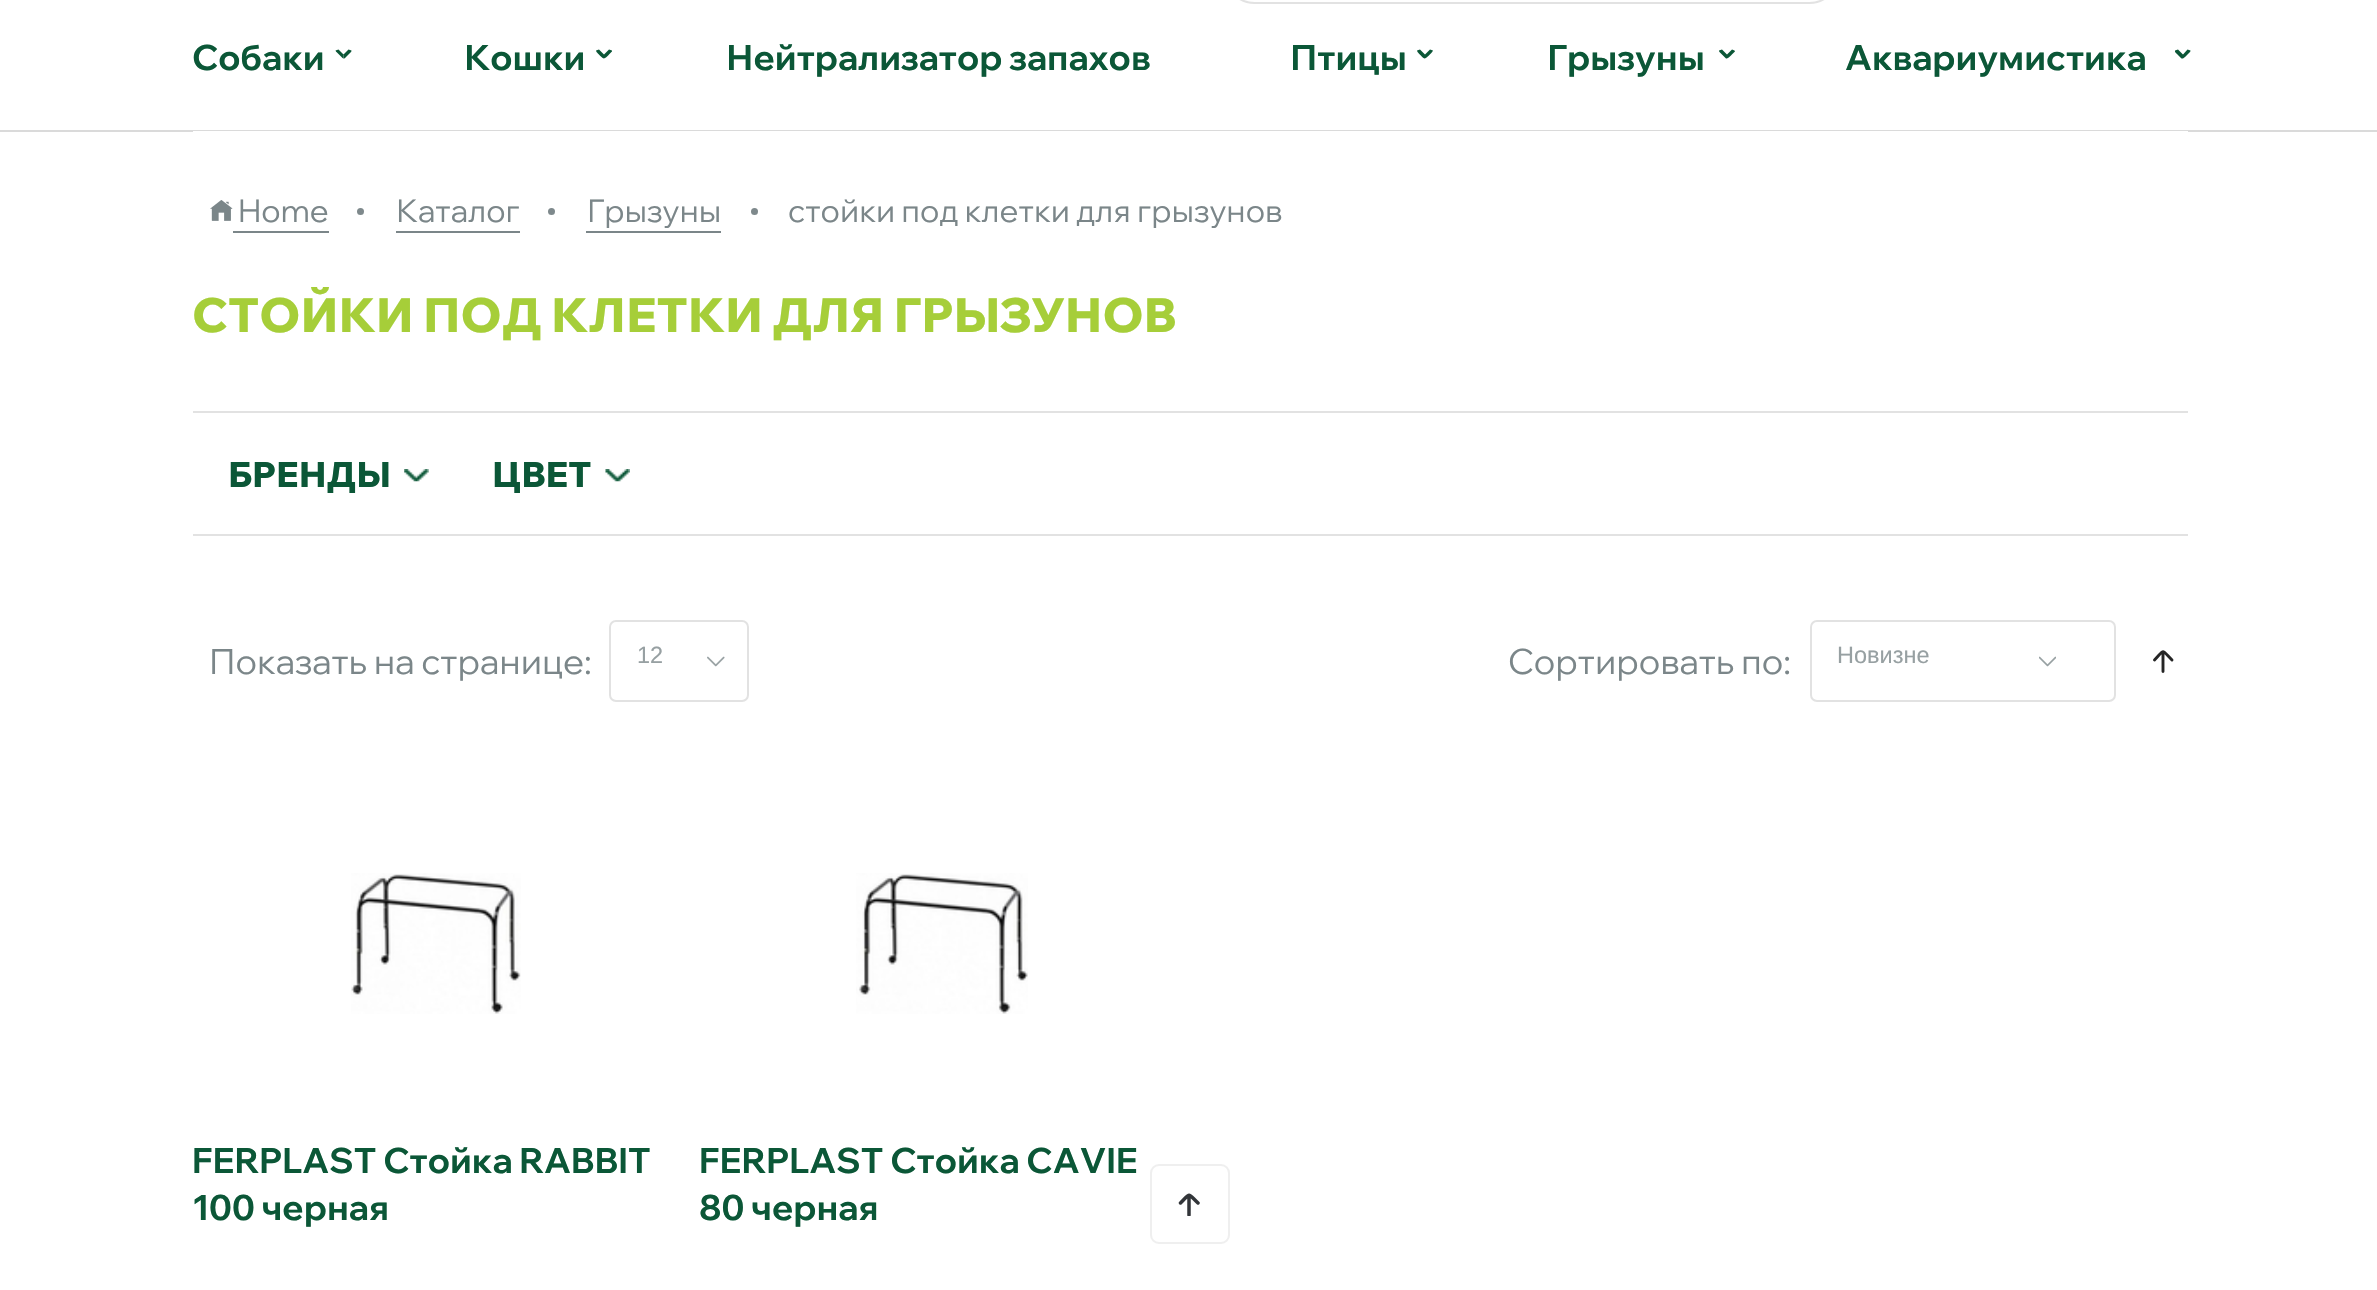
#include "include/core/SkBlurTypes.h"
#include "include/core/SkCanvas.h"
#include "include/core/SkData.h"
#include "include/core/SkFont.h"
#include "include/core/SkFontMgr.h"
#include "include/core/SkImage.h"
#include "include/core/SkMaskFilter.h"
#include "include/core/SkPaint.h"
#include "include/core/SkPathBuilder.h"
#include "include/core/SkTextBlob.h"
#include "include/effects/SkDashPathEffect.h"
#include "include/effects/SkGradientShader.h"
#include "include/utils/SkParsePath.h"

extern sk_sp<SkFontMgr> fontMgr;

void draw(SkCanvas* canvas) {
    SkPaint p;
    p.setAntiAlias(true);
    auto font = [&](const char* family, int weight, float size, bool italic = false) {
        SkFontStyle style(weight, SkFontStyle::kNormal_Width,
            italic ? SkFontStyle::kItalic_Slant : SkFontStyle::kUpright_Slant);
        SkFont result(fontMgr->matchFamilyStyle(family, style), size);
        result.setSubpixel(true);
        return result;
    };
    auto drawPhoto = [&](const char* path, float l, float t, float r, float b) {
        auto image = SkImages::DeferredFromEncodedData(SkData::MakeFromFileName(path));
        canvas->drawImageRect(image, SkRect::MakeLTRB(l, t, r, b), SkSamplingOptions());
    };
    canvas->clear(0xFFFFFFFF);
    p.setStyle(SkPaint::kStroke_Style);
    p.setStrokeWidth(2);
    p.setColor(0xFFE2E2E2);
    canvas->drawRoundRect(SkRect::MakeLTRB(1226, -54, 1838, 3), 52, 52, p);
    p.setStyle(SkPaint::kFill_Style);
    p.setColor(0xFFDADADA);
    canvas->drawRect(SkRect::MakeLTRB(0, 130, 2377, 132), p);
    auto font1 = font("Wix Madefor Display", 700, 35);
    p.setColor(0xFF0B5737);
    canvas->drawString("Собаки", 192, 70, font1, p);
    canvas->drawPath(SkPathBuilder().moveTo(351, 52).cubicTo(351.5f, 51.5f, 351.5f, 51, 351.5f, 50.5f).lineTo(348.5f, 49.5f).lineTo(343.5f, 54.5f).lineTo(343.5f, 58.5f).cubicTo(344.5f, 58.5f, 345, 58, 346, 57).close().detach(), p);
    canvas->drawPath(SkPathBuilder().moveTo(336, 51.5f).lineTo(335.5f, 50.5f).lineTo(338.5f, 49.5f).lineTo(343.5f, 54.5f).lineTo(343.5f, 58.5f).lineTo(342.5f, 58).lineTo(339.5f, 55).close().detach(), p);
    canvas->drawString("Кошки", 464, 70, font1, p);
    canvas->drawPath(SkPathBuilder().moveTo(612, 51.5f).cubicTo(610, 53, 606.5f, 58, 604, 58.5f).lineTo(604, 54.5f).lineTo(609, 49.5f).lineTo(612, 50.5f).close().moveTo(596.5f, 52).lineTo(596, 50.5f).lineTo(599, 49.5f).lineTo(604, 54.5f).lineTo(604, 58.5f).cubicTo(602.5f, 58.5f, 597.5f, 53, 596.5f, 52).close().detach(), p);
    canvas->drawString("Нейтрализатор запахов", 726, 70, font1, p);
    canvas->drawString("Птицы", 1290, 70, font1, p);
    canvas->drawPath(SkPathBuilder().moveTo(1432.5f, 51.5f).cubicTo(1431.5f, 53, 1426.5f, 58, 1425, 58.5f).lineTo(1425, 54.5f).lineTo(1430, 49.5f).lineTo(1433, 50.5f).close().moveTo(1417.5f, 52).lineTo(1417, 50.5f).lineTo(1420, 49.5f).lineTo(1425, 54.5f).lineTo(1425, 58.5f).cubicTo(1423.5f, 59, 1418.5f, 53, 1417.5f, 52).close().detach(), p);
    canvas->drawString("Грызуны", 1547, 70, font1, p);
    canvas->drawPath(SkPathBuilder().moveTo(1735, 51.5f).cubicTo(1733, 53, 1729, 58, 1727, 58.5f).lineTo(1727, 54.5f).lineTo(1732, 49.5f).lineTo(1734.5f, 50.5f).close().moveTo(1719.5f, 52).cubicTo(1719, 51.5f, 1719, 51, 1719, 50.5f).lineTo(1722, 49.5f).lineTo(1727, 54.5f).lineTo(1727, 58.5f).lineTo(1726, 58.5f).close().detach(), p);
    canvas->drawString("Аквариумистика", 1845, 70, font1, p);
    canvas->drawPath(SkPathBuilder().moveTo(2190, 52).cubicTo(2190.5f, 51.5f, 2190.5f, 51, 2190.5f, 50.5f).lineTo(2187.5f, 49.5f).lineTo(2183, 54.5f).lineTo(2183, 58.5f).lineTo(2185, 57).close().moveTo(2175, 52).lineTo(2175, 50.5f).lineTo(2178, 49.5f).lineTo(2183, 54.5f).lineTo(2183, 58.5f).lineTo(2181.5f, 58.5f).close().detach(), p);
    p.setColor(0xFFFFFFFF);
    canvas->drawRect(SkRect::MakeLTRB(193, 131, 2188, 132), p);
    drawPhoto("media/1.png", 210, 200, 233, 221);
    auto font2 = font("Wix Madefor Display", 400, 31.5f);
    p.setColor(0xFF7B8689);
    canvas->drawString("Home", 238, 222, font2, p);
    canvas->drawRect(SkRect::MakeLTRB(233, 231, 329, 233), p);
    p.setColor(0xFF7E898C);
    canvas->drawCircle(360.5f, 211.5f, 3.5f, p);
    p.setColor(0xFF7B8689);
    canvas->drawString("Каталог", 396, 222, font2, p);
    canvas->drawRect(SkRect::MakeLTRB(396, 231, 520, 233), p);
    p.setColor(0xFF7E898C);
    canvas->drawCircle(551.5f, 211.5f, 3.5f, p);
    p.setColor(0xFF7B8689);
    canvas->drawString("Грызуны", 587, 222, font2, p);
    canvas->drawRect(SkRect::MakeLTRB(586, 231, 721, 233), p);
    p.setColor(0xFF7E898C);
    canvas->drawCircle(754.5f, 211.5f, 3.5f, p);
    p.setColor(0xFF7B8689);
    canvas->drawString("стойки под клетки для грызунов", 788, 222, font2, p);
    auto font3 = font("Wix Madefor Display", 800, 47.25f);
    p.setColor(0xFFA6CE39);
    canvas->drawString("СТОЙКИ ПОД КЛЕТКИ ДЛЯ ГРЫЗУНОВ", 192, 332, font3, p);
    p.setColor(0xFFE2E2E2);
    canvas->drawRect(SkRect::MakeLTRB(193, 411, 2188, 413), p);
    canvas->drawRect(SkRect::MakeLTRB(193, 534, 2188, 536), p);
    auto font4 = font("Wix Madefor Display", 800, 35);
    p.setColor(0xFF0B5737);
    canvas->drawString("БРЕНДЫ", 228, 487, font4, p);
    drawPhoto("media/2.png", 404, 469, 429, 482);
    canvas->drawString("ЦВЕТ", 492, 487, font4, p);
    drawPhoto("media/3.png", 605, 469, 630, 482);
    auto font5 = font("Wix Madefor Display", 400, 35);
    p.setColor(0xFF7B8689);
    canvas->drawString("Показать на странице:", 209, 674, font5, p);
    drawPhoto("media/4.png", 707, 656, 725, 667);
    p.setStyle(SkPaint::kStroke_Style);
    p.setColor(0xFFE2E2E2);
    canvas->drawRoundRect(SkRect::MakeLTRB(610, 621, 748, 701), 6, 6, p);
    auto font6 = font("Liberation Sans", 400, 23.5f);
    p.setStyle(SkPaint::kFill_Style);
    p.setColor(0xFF97A0A2);
    canvas->drawString("12", 637, 663, font6, p);
    p.setColor(0xFF7B8689);
    canvas->drawString("Сортировать по:", 1508, 674, font5, p);
    drawPhoto("media/5.png", 2039, 656, 2056, 667);
    p.setStyle(SkPaint::kStroke_Style);
    p.setColor(0xFFE2E2E2);
    canvas->drawRoundRect(SkRect::MakeLTRB(1811, 621, 2115, 701), 6, 6, p);
    p.setStyle(SkPaint::kFill_Style);
    p.setColor(0xFF97A0A2);
    canvas->drawString("Новизне", 1837, 663, font6, p);
    p.setStyle(SkPaint::kStroke_Style);
    p.setStrokeWidth(2.9f);
    p.setStrokeCap(SkPaint::kRound_Cap);
    p.setColor(0xFF252525);
    canvas->drawPath(SkPathBuilder().moveTo(2163, 671.5f).lineTo(2163, 652.5f).moveTo(2154.5f, 660).cubicTo(2165, 649, 2161, 649, 2172, 660).detach(), p);
    drawPhoto("media/6.png", 351, 873, 521, 1014);
    p.setStyle(SkPaint::kFill_Style);
    p.setColor(0xFF0B5737);
    canvas->drawString("FERPLAST Стойка RABBIT", 192, 1173, font1, p);
    canvas->drawString("100 черная", 192, 1220, font1, p);
    drawPhoto("media/7.png", 856, 873, 1028, 1014);
    canvas->drawString("FERPLAST Стойка CAVIE", 699, 1173, font1, p);
    canvas->drawString("80 черная", 699, 1220, font1, p);
    p.setStyle(SkPaint::kStroke_Style);
    p.setStrokeWidth(2);
    p.setStrokeCap(SkPaint::kButt_Cap);
    p.setColor(0xFFEFEFEF);
    canvas->drawRoundRect(SkRect::MakeLTRB(1151, 1165, 1229, 1243), 8, 8, p);
    canvas->save();
    canvas->clipRect(SkRect::MakeLTRB(1178, 1192, 1201, 1216));
    p.setStrokeWidth(3.5f);
    p.setStrokeCap(SkPaint::kRound_Cap);
    p.setColor(0xFF323539);
    canvas->drawPath(SkPathBuilder().moveTo(1189, 1215).lineTo(1189, 1196).moveTo(1180.5f, 1203).cubicTo(1191, 1192.5f, 1187, 1192.5f, 1198, 1203).detach(), p);
    canvas->restore();
}
